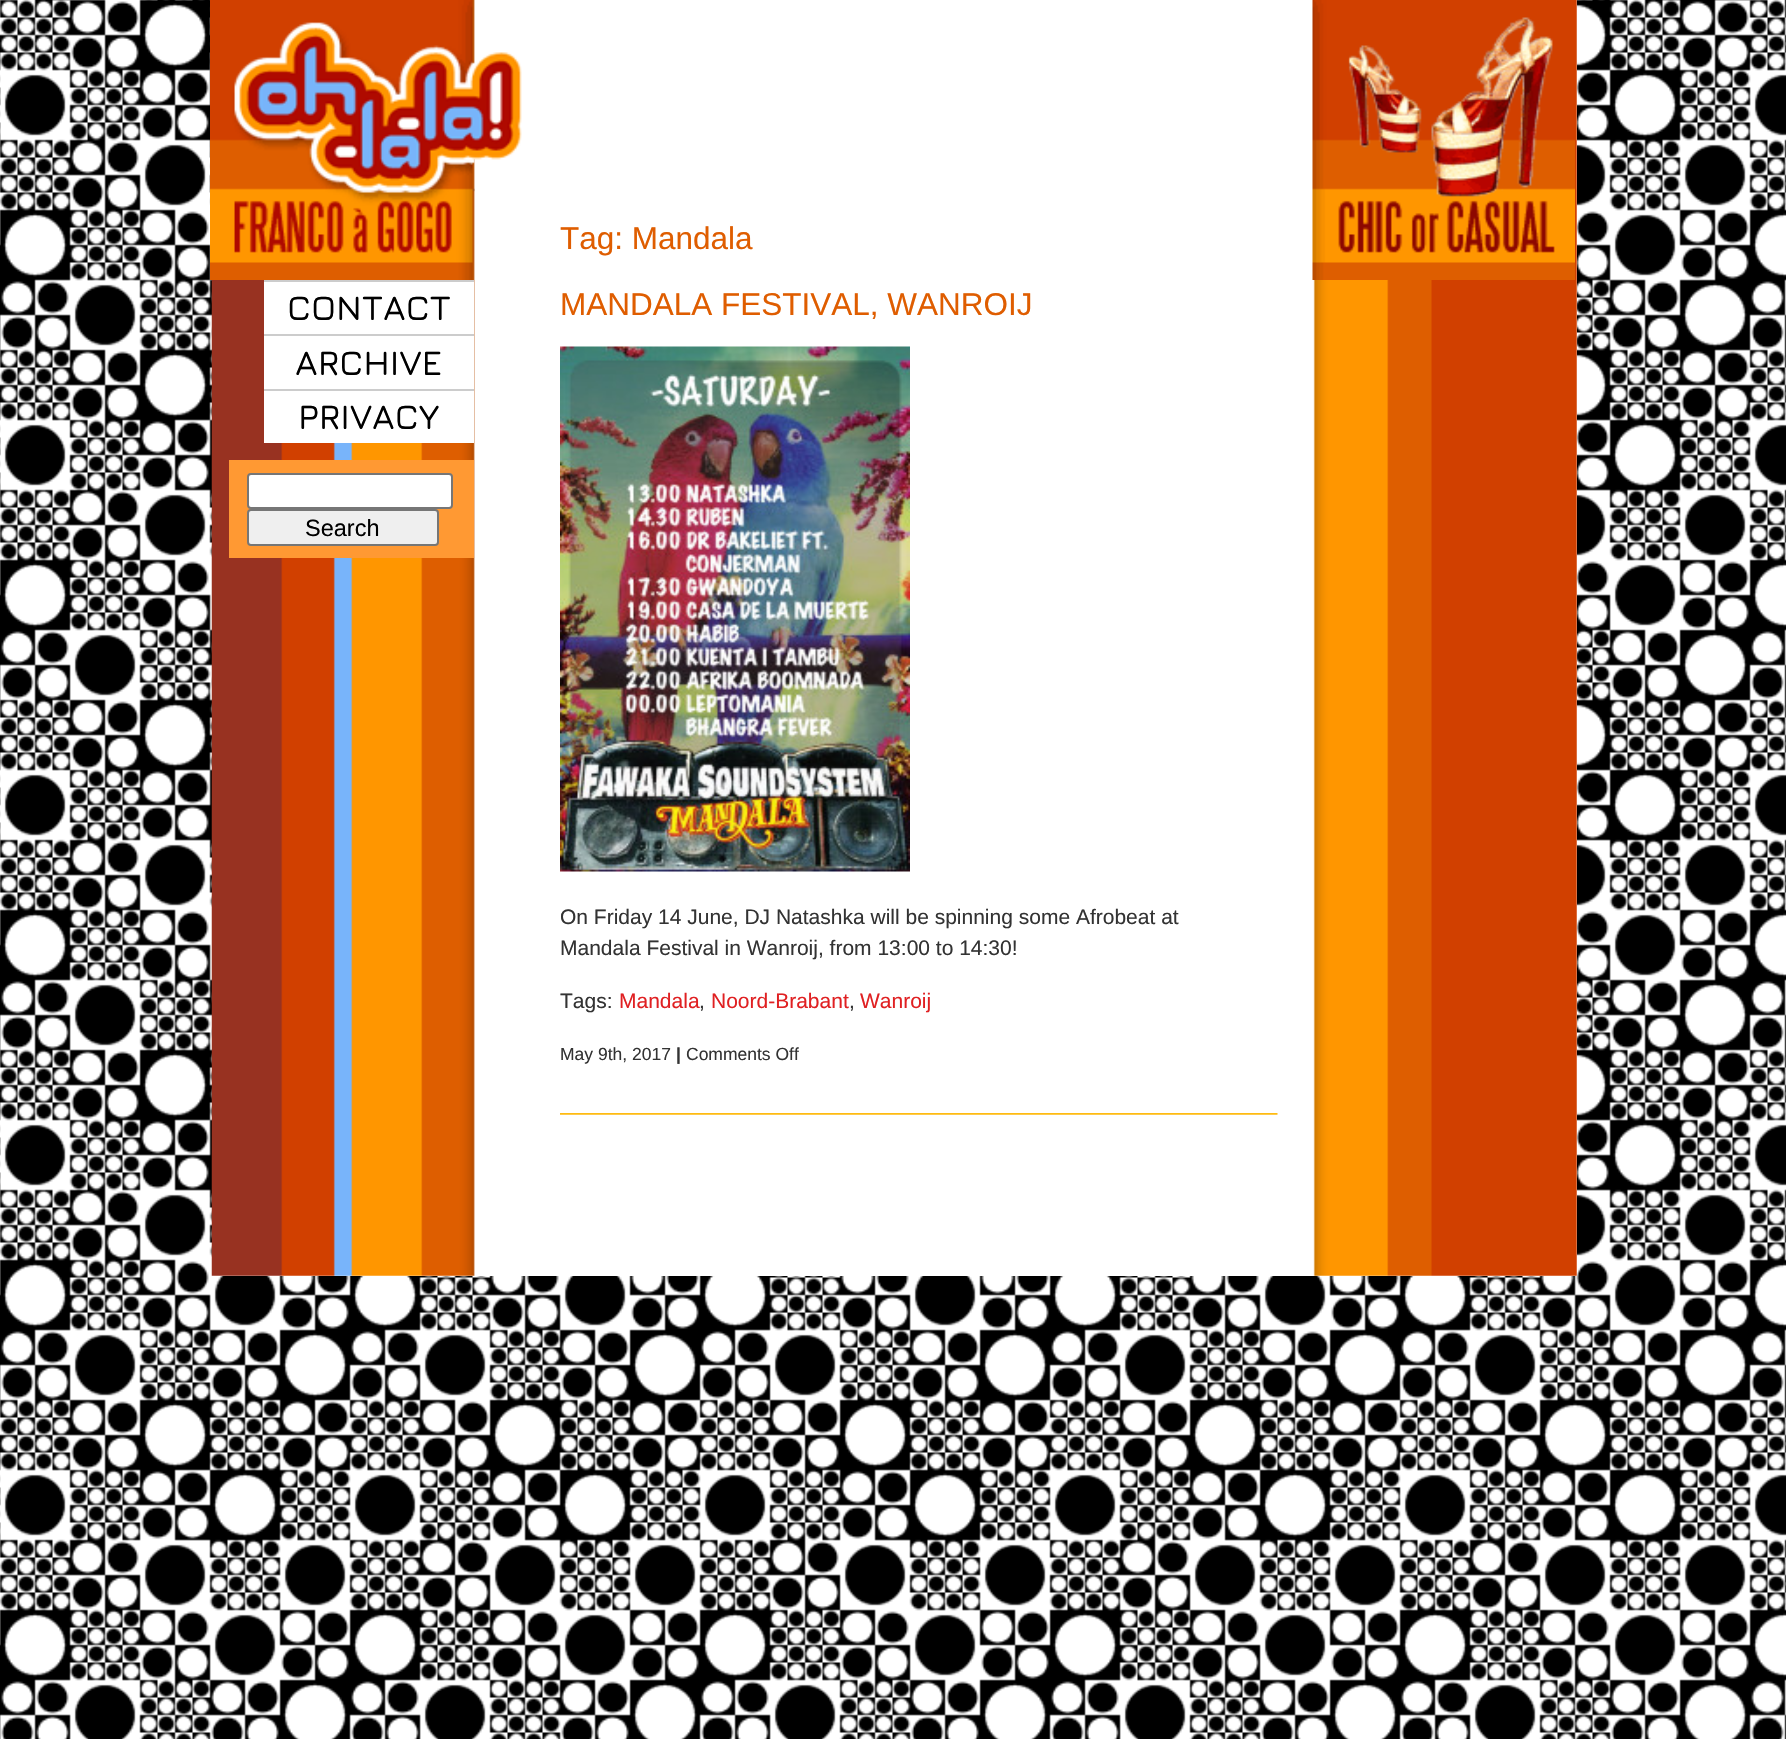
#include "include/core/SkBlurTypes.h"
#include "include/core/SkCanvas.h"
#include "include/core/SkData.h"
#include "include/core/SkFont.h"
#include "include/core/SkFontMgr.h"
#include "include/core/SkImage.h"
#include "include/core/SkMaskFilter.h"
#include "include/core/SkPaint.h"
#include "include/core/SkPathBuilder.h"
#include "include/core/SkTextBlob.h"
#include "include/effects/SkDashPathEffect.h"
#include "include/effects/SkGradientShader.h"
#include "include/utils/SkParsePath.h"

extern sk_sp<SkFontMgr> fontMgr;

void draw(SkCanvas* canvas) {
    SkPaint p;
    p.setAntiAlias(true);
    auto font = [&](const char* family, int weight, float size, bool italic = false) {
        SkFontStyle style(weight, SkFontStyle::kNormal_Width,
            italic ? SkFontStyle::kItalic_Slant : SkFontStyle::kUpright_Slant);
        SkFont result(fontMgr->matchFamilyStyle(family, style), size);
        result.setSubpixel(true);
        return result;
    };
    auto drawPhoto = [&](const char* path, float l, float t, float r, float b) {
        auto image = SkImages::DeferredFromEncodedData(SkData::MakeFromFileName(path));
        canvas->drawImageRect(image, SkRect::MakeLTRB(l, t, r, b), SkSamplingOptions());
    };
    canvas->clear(0xFFFFFFFF);
    drawPhoto("media/1.png", 0, 0, 1786, 1739);
    p.setColor(0xFFFFFFFF);
    canvas->drawRect(SkRect::MakeLTRB(212, 0, 1577, 1276), p);
    drawPhoto("media/2.png", 211, 0, 1577, 1276);
    drawPhoto("media/3.png", 1312, 0, 1575, 280);
    drawPhoto("media/4.png", 210, 0, 522, 280);
    canvas->drawRect(SkRect::MakeLTRB(264, 282, 474, 443), p);
    p.setColor(0xFFCCCCCC);
    canvas->drawRect(SkRect::MakeLTRB(264, 280, 474, 282), p);
    auto font1 = font("Jura", 600, 35);
    p.setColor(0xFF000000);
    canvas->drawString("CONTACT", 287, 320, font1, p);
    p.setColor(0xFFCCCCCC);
    canvas->drawRect(SkRect::MakeLTRB(264, 334, 474, 336), p);
    p.setColor(0xFF000000);
    canvas->drawString("ARCHIVE", 295, 375, font1, p);
    p.setColor(0xFFCCCCCC);
    canvas->drawRect(SkRect::MakeLTRB(264, 389, 474, 391), p);
    p.setColor(0xFF000000);
    canvas->drawString("PRIVACY", 298, 429, font1, p);
    p.setColor(0xFFFF9933);
    canvas->drawRect(SkRect::MakeLTRB(229, 460, 474, 558), p);
    p.setColor(0xFFFFFFFF);
    canvas->drawRoundRect(SkRect::MakeLTRB(248, 474, 452, 508), 3, 3, p);
    p.setStyle(SkPaint::kStroke_Style);
    p.setStrokeWidth(2);
    p.setColor(0xFF767676);
    canvas->drawRoundRect(SkRect::MakeLTRB(248, 474, 452, 508), 3, 3, p);
    p.setStyle(SkPaint::kFill_Style);
    p.setColor(0xFFEFEFEF);
    canvas->drawRoundRect(SkRect::MakeLTRB(248, 510, 438, 545), 3, 3, p);
    p.setStyle(SkPaint::kStroke_Style);
    p.setColor(0xFF767676);
    canvas->drawRoundRect(SkRect::MakeLTRB(248, 510, 438, 545), 3, 3, p);
    auto font2 = font("Liberation Sans", 400, 23.5f);
    p.setStyle(SkPaint::kFill_Style);
    p.setColor(0xFF000000);
    canvas->drawString("Search", 305, 536, font2, p);
    auto font3 = font("Liberation Sans", 400, 31.5f);
    p.setColor(0xFFDF5D00);
    canvas->drawString("Tag: Mandala", 560, 249, font3, p);
    canvas->drawString("MANDALA FESTIVAL, WANROIJ", 560, 315, font3, p);
    drawPhoto("media/5.png", 560, 346, 910, 872);
    auto font4 = font("Liberation Sans", 400, 21);
    p.setColor(0xFF333333);
    {
        const struct { const char* s; float x, y; } items[] = {
            {"On Friday 14 June, DJ Natashka will be spinning some Afrobeat at", 560, 924},
            {"Mandala Festival in Wanroij, from 13:00 to 14:30!", 560, 955},
            {"Tags:", 560, 1008},
        };
        for (auto [s, x, y] : items) {
            canvas->drawString(s, x, y, font4, p);
        }
    }
    p.setColor(0xFFE02022);
    canvas->drawString("Mandala", 619, 1008, font4, p);
    p.setColor(0xFF333333);
    canvas->drawString(",", 699, 1008, font4, p);
    p.setColor(0xFFE02022);
    canvas->drawString("Noord-Brabant", 711, 1008, font4, p);
    p.setColor(0xFF333333);
    canvas->drawString(",", 849, 1008, font4, p);
    p.setColor(0xFFE02022);
    canvas->drawString("Wanroij", 860, 1008, font4, p);
    auto font5 = font("Liberation Sans", 400, 17.5f);
    p.setColor(0xFF333333);
    canvas->drawString("May 9th, 2017", 560, 1060, font5, p);
    auto font6 = font("Liberation Sans", 700, 17.5f);
    canvas->drawString("|", 676, 1060, font6, p);
    canvas->drawString("Comments Off", 686, 1060, font5, p);
    drawPhoto("media/6.png", 560, 1113, 1278, 1115);
}
